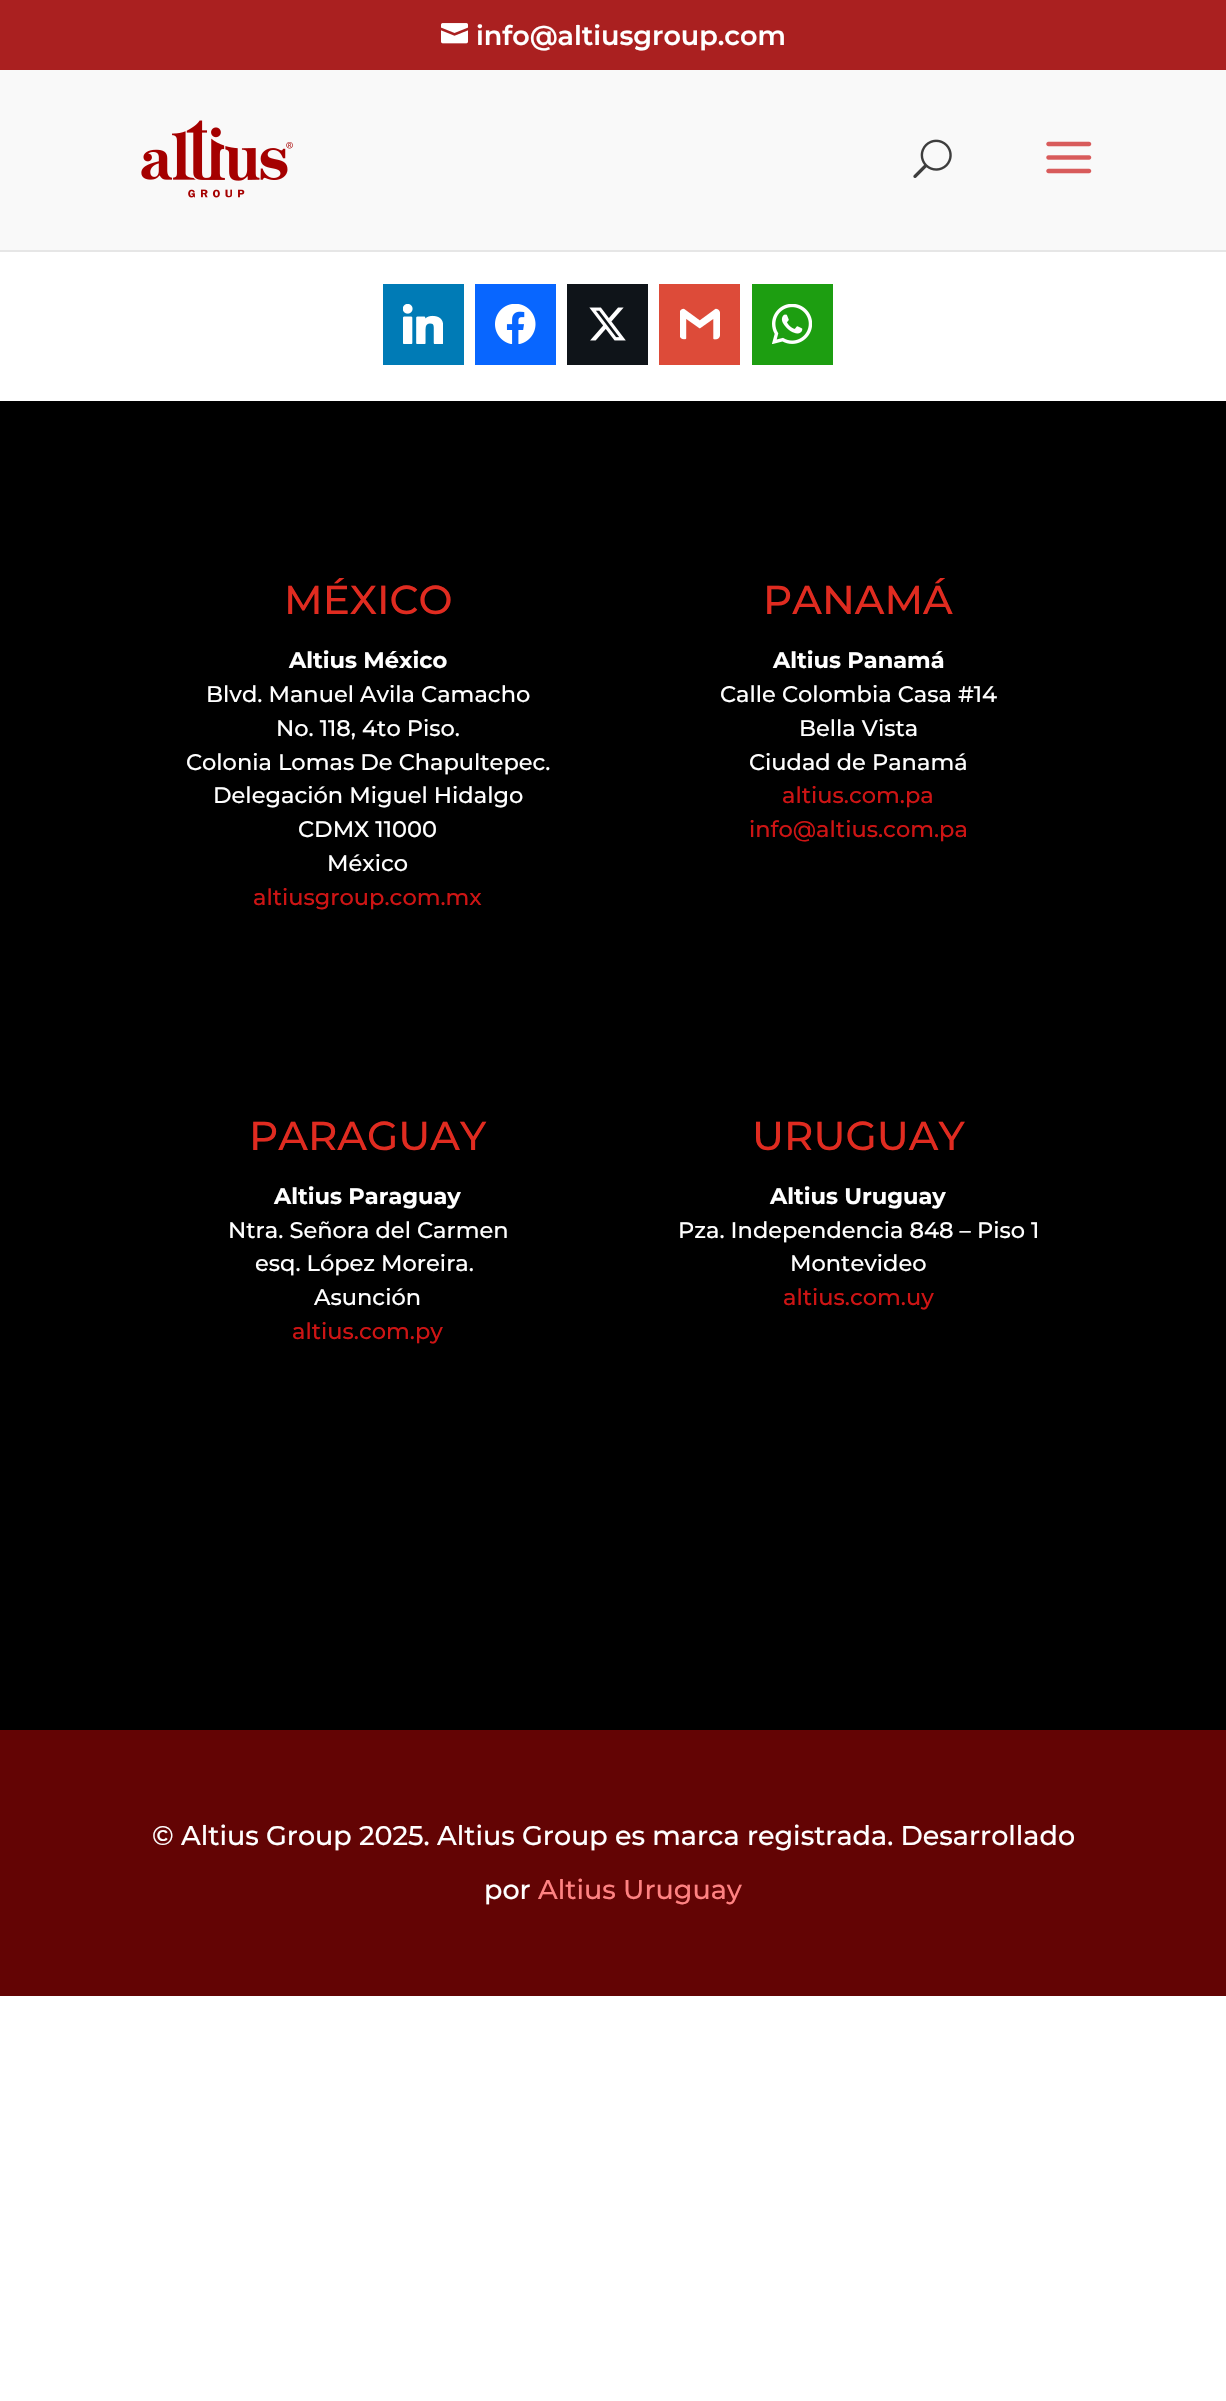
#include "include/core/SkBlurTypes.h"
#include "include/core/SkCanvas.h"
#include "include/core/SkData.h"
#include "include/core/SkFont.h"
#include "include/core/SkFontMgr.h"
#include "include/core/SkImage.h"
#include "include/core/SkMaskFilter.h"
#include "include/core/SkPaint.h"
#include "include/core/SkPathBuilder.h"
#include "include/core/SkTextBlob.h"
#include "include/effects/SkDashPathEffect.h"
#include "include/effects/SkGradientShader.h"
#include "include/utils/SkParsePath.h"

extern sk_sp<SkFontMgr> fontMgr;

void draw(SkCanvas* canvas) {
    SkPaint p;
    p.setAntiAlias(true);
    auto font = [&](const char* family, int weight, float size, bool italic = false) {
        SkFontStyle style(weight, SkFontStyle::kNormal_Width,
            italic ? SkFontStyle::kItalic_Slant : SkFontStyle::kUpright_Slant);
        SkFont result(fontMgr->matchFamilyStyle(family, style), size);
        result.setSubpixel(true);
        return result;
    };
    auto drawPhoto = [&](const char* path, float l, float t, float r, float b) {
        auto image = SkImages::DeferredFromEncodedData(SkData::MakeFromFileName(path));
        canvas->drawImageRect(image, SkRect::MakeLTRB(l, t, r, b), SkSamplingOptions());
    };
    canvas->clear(0xFFFFFFFF);
    p.setColor(0xFFAA2020);
    canvas->drawRect(SkRect::MakeLTRB(0, 0, 1226, 70), p);
    drawPhoto("media/1.png", 441, 23, 468, 44);
    auto font1 = font("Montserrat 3", 100, 27);
    p.setColor(0xFFFFFFFF);
    canvas->drawString("info@altiusgroup.com", 476, 45, font1, p);
    p.setColor(0xFFE6E6E6);
    canvas->drawRect(SkRect::MakeLTRB(0, 250, 1226, 252), p);
    p.setColor(0xFFF9F9F9);
    canvas->drawRect(SkRect::MakeLTRB(0, 70, 1226, 250), p);
    drawPhoto("media/2.png", 141, 120, 293, 198);
    drawPhoto("media/3.png", 913, 139, 952, 178);
    drawPhoto("media/4.png", 1046, 141, 1092, 174);
    p.setColor(0xFF007BB6);
    canvas->drawRect(SkRect::MakeLTRB(383, 284, 464, 365), p);
    drawPhoto("media/5.png", 403, 304, 443, 344);
    p.setColor(0xFF0866FF);
    canvas->drawRect(SkRect::MakeLTRB(475, 284, 556, 365), p);
    drawPhoto("media/6.png", 495, 304, 536, 344);
    p.setColor(0xFF0F1419);
    canvas->drawRect(SkRect::MakeLTRB(567, 284, 648, 365), p);
    drawPhoto("media/7.png", 589, 307, 626, 341);
    p.setColor(0xFFDD4B39);
    canvas->drawRect(SkRect::MakeLTRB(659, 284, 740, 365), p);
    drawPhoto("media/8.png", 680, 308, 720, 340);
    p.setColor(0xFF1D9E11);
    canvas->drawRect(SkRect::MakeLTRB(752, 284, 833, 365), p);
    drawPhoto("media/9.png", 772, 304, 812, 344);
    p.setColor(0xFF000000);
    canvas->drawRect(SkRect::MakeLTRB(0, 401, 1226, 1730), p);
    auto font2 = font("Montserrat", 100, 40.5f);
    p.setColor(0xFFE02B20);
    canvas->drawString("MÉXICO", 284, 614, font2, p);
    auto font3 = font("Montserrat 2", 100, 22.5f);
    p.setColor(0xFFFFFFFF);
    canvas->drawString("Altius México", 289, 668, font3, p);
    auto font4 = font("Montserrat", 100, 22.5f);
    {
        const struct { const char* s; float x, y; } items[] = {
            {"Blvd. Manuel Avila Camacho", 206, 702},
            {"No. 118, 4to Piso.", 276, 736},
            {"Colonia Lomas De Chapultepec.", 186, 770},
            {"Delegación Miguel Hidalgo", 213, 803},
            {"CDMX 11000", 298, 837},
            {"México", 327, 871},
        };
        for (auto [s, x, y] : items) {
            canvas->drawString(s, x, y, font4, p);
        }
    }
    p.setColor(0xFFCE1414);
    canvas->drawString("altiusgroup.com.mx", 253, 905, font4, p);
    p.setColor(0xFFE02B20);
    canvas->drawString("PANAMÁ", 763, 614, font2, p);
    p.setColor(0xFFFFFFFF);
    canvas->drawString("Altius Panamá", 773, 668, font3, p);
    {
        const struct { const char* s; float x, y; } items[] = {
            {"Calle Colombia Casa #14", 720, 702},
            {"Bella Vista", 799, 736},
            {"Ciudad de Panamá", 749, 770},
        };
        for (auto [s, x, y] : items) {
            canvas->drawString(s, x, y, font4, p);
        }
    }
    p.setColor(0xFFCE1414);
    canvas->drawString("altius.com.pa", 782, 803, font4, p);
    canvas->drawString("info@altius.com.pa", 749, 837, font4, p);
    p.setColor(0xFFE02B20);
    canvas->drawString("PARAGUAY", 249, 1150, font2, p);
    p.setColor(0xFFFFFFFF);
    canvas->drawString("Altius Paraguay", 274, 1204, font3, p);
    {
        const struct { const char* s; float x, y; } items[] = {
            {"Ntra. Señora del Carmen", 228, 1238},
            {"esq. López Moreira.", 255, 1271},
            {"Asunción", 314, 1305},
        };
        for (auto [s, x, y] : items) {
            canvas->drawString(s, x, y, font4, p);
        }
    }
    p.setColor(0xFFCE1414);
    canvas->drawString("altius.com.py", 292, 1339, font4, p);
    p.setColor(0xFFE02B20);
    canvas->drawString("URUGUAY", 752, 1150, font2, p);
    p.setColor(0xFFFFFFFF);
    canvas->drawString("Altius Uruguay", 770, 1204, font3, p);
    canvas->drawString("Pza. Independencia 848 – Piso 1", 678, 1238, font4, p);
    canvas->drawString("Montevideo", 790, 1271, font4, p);
    p.setColor(0xFFCE1414);
    canvas->drawString("altius.com.uy", 783, 1305, font4, p);
    p.setColor(0xFF630404);
    canvas->drawRect(SkRect::MakeLTRB(0, 1730, 1226, 1996), p);
    auto font5 = font("Montserrat", 100, 27);
    p.setColor(0xFFFFFFFF);
    canvas->drawString("© Altius Group 2025. Altius Group es marca registrada. Desarrollado", 152, 1845, font5, p);
    canvas->drawString("por", 484, 1899, font5, p);
    p.setColor(0xFFFF8282);
    canvas->drawString("Altius Uruguay", 538, 1899, font5, p);
}
